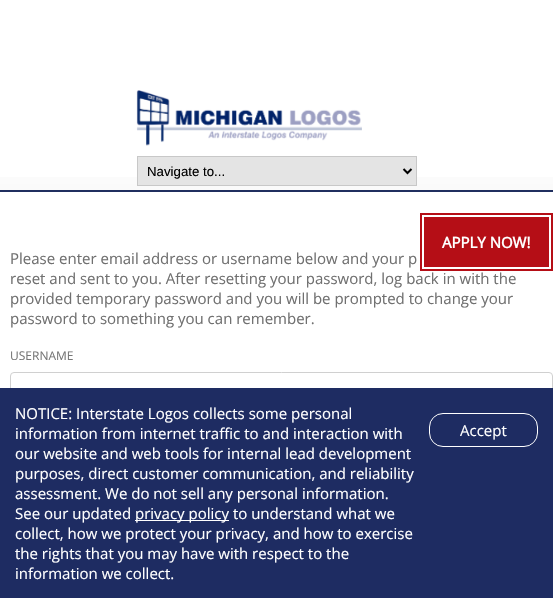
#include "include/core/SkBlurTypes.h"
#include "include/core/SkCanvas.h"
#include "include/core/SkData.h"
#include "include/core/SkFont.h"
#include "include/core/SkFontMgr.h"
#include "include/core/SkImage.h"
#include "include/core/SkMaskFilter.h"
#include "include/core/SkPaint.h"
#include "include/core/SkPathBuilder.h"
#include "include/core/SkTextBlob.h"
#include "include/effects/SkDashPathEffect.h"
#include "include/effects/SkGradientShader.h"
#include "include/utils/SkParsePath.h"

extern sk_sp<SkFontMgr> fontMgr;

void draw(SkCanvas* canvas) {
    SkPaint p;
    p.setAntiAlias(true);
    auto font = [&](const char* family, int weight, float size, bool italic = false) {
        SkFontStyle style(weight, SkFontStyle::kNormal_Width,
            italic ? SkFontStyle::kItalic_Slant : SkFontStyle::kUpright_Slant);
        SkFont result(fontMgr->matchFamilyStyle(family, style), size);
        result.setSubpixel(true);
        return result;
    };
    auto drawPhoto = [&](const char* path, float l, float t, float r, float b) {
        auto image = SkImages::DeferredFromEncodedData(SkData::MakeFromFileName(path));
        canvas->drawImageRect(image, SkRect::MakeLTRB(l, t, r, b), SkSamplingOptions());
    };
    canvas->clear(0xFFFFFFFF);
    drawPhoto("media/1.png", 0, 177, 553, 190);
    p.setColor(0xFF202F5F);
    canvas->drawRect(SkRect::MakeLTRB(0, 190, 553, 192), p);
    drawPhoto("media/2.png", 136, 90, 362, 146);
    p.setColor(0xFFE4E4E4);
    canvas->drawRect(SkRect::MakeLTRB(137.5f, 156.5f, 416.5f, 185.5f), p);
    p.setStyle(SkPaint::kStroke_Style);
    p.setStrokeWidth(1);
    p.setColor(0xFFC8C8C8);
    canvas->drawRect(SkRect::MakeLTRB(137.5f, 156.5f, 416.5f, 185.5f), p);
    p.setStrokeWidth(2);
    p.setColor(0xFF000000);
    canvas->drawPath(SkPathBuilder().moveTo(403.5f, 169).lineTo(407.5f, 173).lineTo(411.5f, 169).detach(), p);
    auto font1 = font("Liberation Sans", 400, 13.25f);
    p.setStyle(SkPaint::kFill_Style);
    canvas->drawString("Navigate to...", 147, 176, font1, p);
    p.setColor(0xFFB50E16);
    canvas->drawRect(SkRect::MakeLTRB(424, 217, 549, 267), p);
    p.setStyle(SkPaint::kStroke_Style);
    canvas->drawRect(SkRect::MakeLTRB(421, 214, 552, 270), p);
    auto font2 = font("Open Sans", 700, 15);
    p.setStyle(SkPaint::kFill_Style);
    p.setColor(0xFFFFFFFF);
    canvas->drawString("APPLY NOW!", 442, 248, font2, p);
    auto font3 = font("Open Sans", 400, 15);
    p.setColor(0xFF707070);
    {
        const struct { const char* s; float x, y; } items[] = {
            {"Please enter email address or username below and your p", 10, 264},
            {"reset and sent to you. After resetting your password, log back in with the", 10, 284},
            {"provided temporary password and you will be prompted to change your", 10, 304},
            {"password to something you can remember.", 10, 324},
        };
        for (auto [s, x, y] : items) {
            canvas->drawString(s, x, y, font3, p);
        }
    }
    auto font4 = font("Open Sans", 400, 12);
    p.setColor(0xFF777777);
    canvas->drawString("USERNAME", 10, 360, font4, p);
    p.setStyle(SkPaint::kStroke_Style);
    p.setStrokeWidth(1);
    p.setColor(0xFFD0D0D0);
    canvas->drawRoundRect(SkRect::MakeLTRB(10.5f, 372.5f, 552.5f, 403.5f), 3.5f, 3.5f, p);
    p.setStyle(SkPaint::kFill_Style);
    p.setColor(0xFF1E2C62);
    canvas->drawRect(SkRect::MakeLTRB(0, 388, 553, 598), p);
    p.setColor(0xFFFFFFFF);
    {
        const struct { const char* s; float x, y; } items[] = {
            {"NOTICE: Interstate Logos collects some personal", 15, 419},
            {"information from internet traffic to and interaction with", 15, 439},
            {"our website and web tools for internal lead development", 15, 459},
            {"purposes, direct customer communication, and reliability", 15, 479},
            {"assessment. We do not sell any personal information.", 15, 499},
            {"See our updated", 15, 519},
        };
        for (auto [s, x, y] : items) {
            canvas->drawString(s, x, y, font3, p);
        }
    }
    canvas->drawRect(SkRect::MakeLTRB(135, 520, 229, 521), p);
    {
        const struct { const char* s; float x, y; } items[] = {
            {"privacy policy to understand what we", 135, 519},
            {"collect, how we protect your privacy, and how to exercise", 15, 539},
            {"the rights that you may have with respect to the", 15, 559},
            {"information we collect.", 15, 579},
        };
        for (auto [s, x, y] : items) {
            canvas->drawString(s, x, y, font3, p);
        }
    }
    p.setStyle(SkPaint::kStroke_Style);
    canvas->drawRoundRect(SkRect::MakeLTRB(429.5f, 413.5f, 537.5f, 446.5f), 13.5f, 13.5f, p);
    p.setStyle(SkPaint::kFill_Style);
    canvas->drawString("Accept", 460, 436, font3, p);
}
